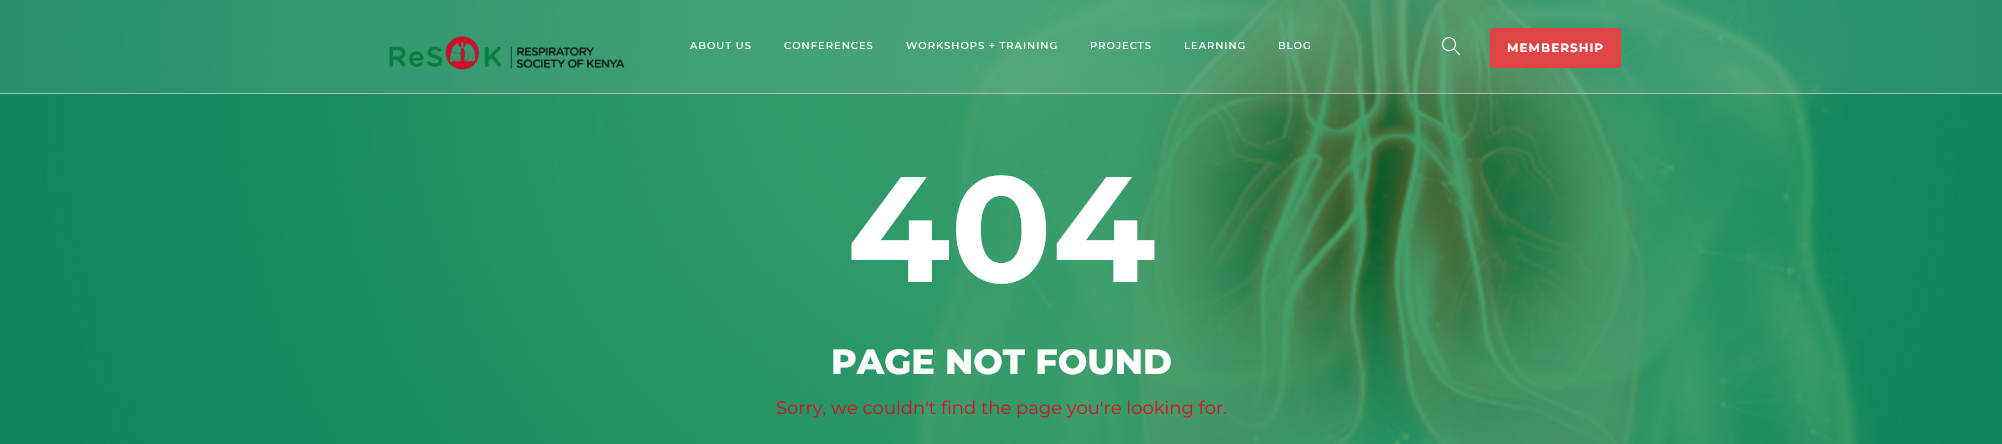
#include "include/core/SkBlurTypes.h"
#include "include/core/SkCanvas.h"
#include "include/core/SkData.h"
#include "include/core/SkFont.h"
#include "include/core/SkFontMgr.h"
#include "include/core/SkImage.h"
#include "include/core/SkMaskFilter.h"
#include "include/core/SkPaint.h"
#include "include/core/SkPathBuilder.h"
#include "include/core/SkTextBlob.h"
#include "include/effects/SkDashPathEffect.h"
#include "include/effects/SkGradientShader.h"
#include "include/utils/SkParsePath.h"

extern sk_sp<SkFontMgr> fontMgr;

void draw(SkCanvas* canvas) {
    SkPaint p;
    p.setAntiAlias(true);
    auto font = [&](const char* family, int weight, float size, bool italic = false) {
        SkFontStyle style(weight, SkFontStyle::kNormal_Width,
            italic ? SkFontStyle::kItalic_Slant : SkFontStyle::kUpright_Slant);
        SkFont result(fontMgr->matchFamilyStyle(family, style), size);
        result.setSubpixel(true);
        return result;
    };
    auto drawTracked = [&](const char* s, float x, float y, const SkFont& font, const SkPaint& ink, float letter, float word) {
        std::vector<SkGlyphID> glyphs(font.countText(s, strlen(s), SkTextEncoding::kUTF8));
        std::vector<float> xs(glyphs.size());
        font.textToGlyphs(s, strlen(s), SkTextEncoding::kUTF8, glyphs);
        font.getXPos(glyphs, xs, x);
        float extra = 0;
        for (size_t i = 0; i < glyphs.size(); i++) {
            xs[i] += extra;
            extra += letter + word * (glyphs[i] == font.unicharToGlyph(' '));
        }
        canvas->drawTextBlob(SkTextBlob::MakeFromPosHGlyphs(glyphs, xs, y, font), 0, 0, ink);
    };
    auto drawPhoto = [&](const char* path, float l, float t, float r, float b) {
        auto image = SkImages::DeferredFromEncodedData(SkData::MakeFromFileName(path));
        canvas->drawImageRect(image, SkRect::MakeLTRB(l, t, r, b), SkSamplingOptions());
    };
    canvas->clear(0xFF007E35);
    drawPhoto("media/3.png", 0, 0, 2002, 444);
    p.setColor(0xFFB7B7B7);
    canvas->drawRect(SkRect::MakeLTRB(0, 93, 2002, 94), p);
    p.setColor(0x1AE8E8E8);
    canvas->drawRect(SkRect::MakeLTRB(0, 0, 2002, 93), p);
    drawPhoto("media/1.png", 389, 36, 625, 70);
    auto font1 = font("Montserrat", 500, 10);
    p.setColor(0xFFFFFFFF);
    {
        const struct { const char* s; float x, y; } items[] = {
            {"ABOUT US", 690, 49},
            {"CONFERENCES", 784, 49},
            {"WORKSHOPS + TRAINING", 906, 49},
            {"PROJECTS", 1090, 49},
            {"LEARNING", 1184, 49},
            {"BLOG", 1278, 49},
        };
        for (auto [s, x, y] : items) {
            drawTracked(s, x, y, font1, p, 1, 0);
        }
    }
    drawPhoto("media/2.png", 1442, 37, 1460, 56);
    p.setColor(0xFFE04545);
    canvas->drawRoundRect(SkRect::MakeLTRB(1491, 29, 1620, 67), 2, 2, p);
    p.setStyle(SkPaint::kStroke_Style);
    p.setStrokeWidth(2);
    canvas->drawRoundRect(SkRect::MakeLTRB(1491, 29, 1620, 67), 2, 2, p);
    auto font2 = font("Montserrat", 700, 12);
    p.setStyle(SkPaint::kFill_Style);
    p.setColor(0xFFFFFFFF);
    drawTracked("MEMBERSHIP", 1507, 52, font2, p, 1, 0);
    auto font3 = font("Montserrat", 700, 150);
    canvas->drawString("404", 847, 282, font3, p);
    auto font4 = font("Montserrat", 800, 35);
    canvas->drawString("PAGE NOT FOUND", 831, 374, font4, p);
    auto font5 = font("Montserrat", 400, 18);
    p.setColor(0xFFCF152D);
    canvas->drawString("Sorry, we couldn't find the page you're looking for.", 776, 414, font5, p);
}
